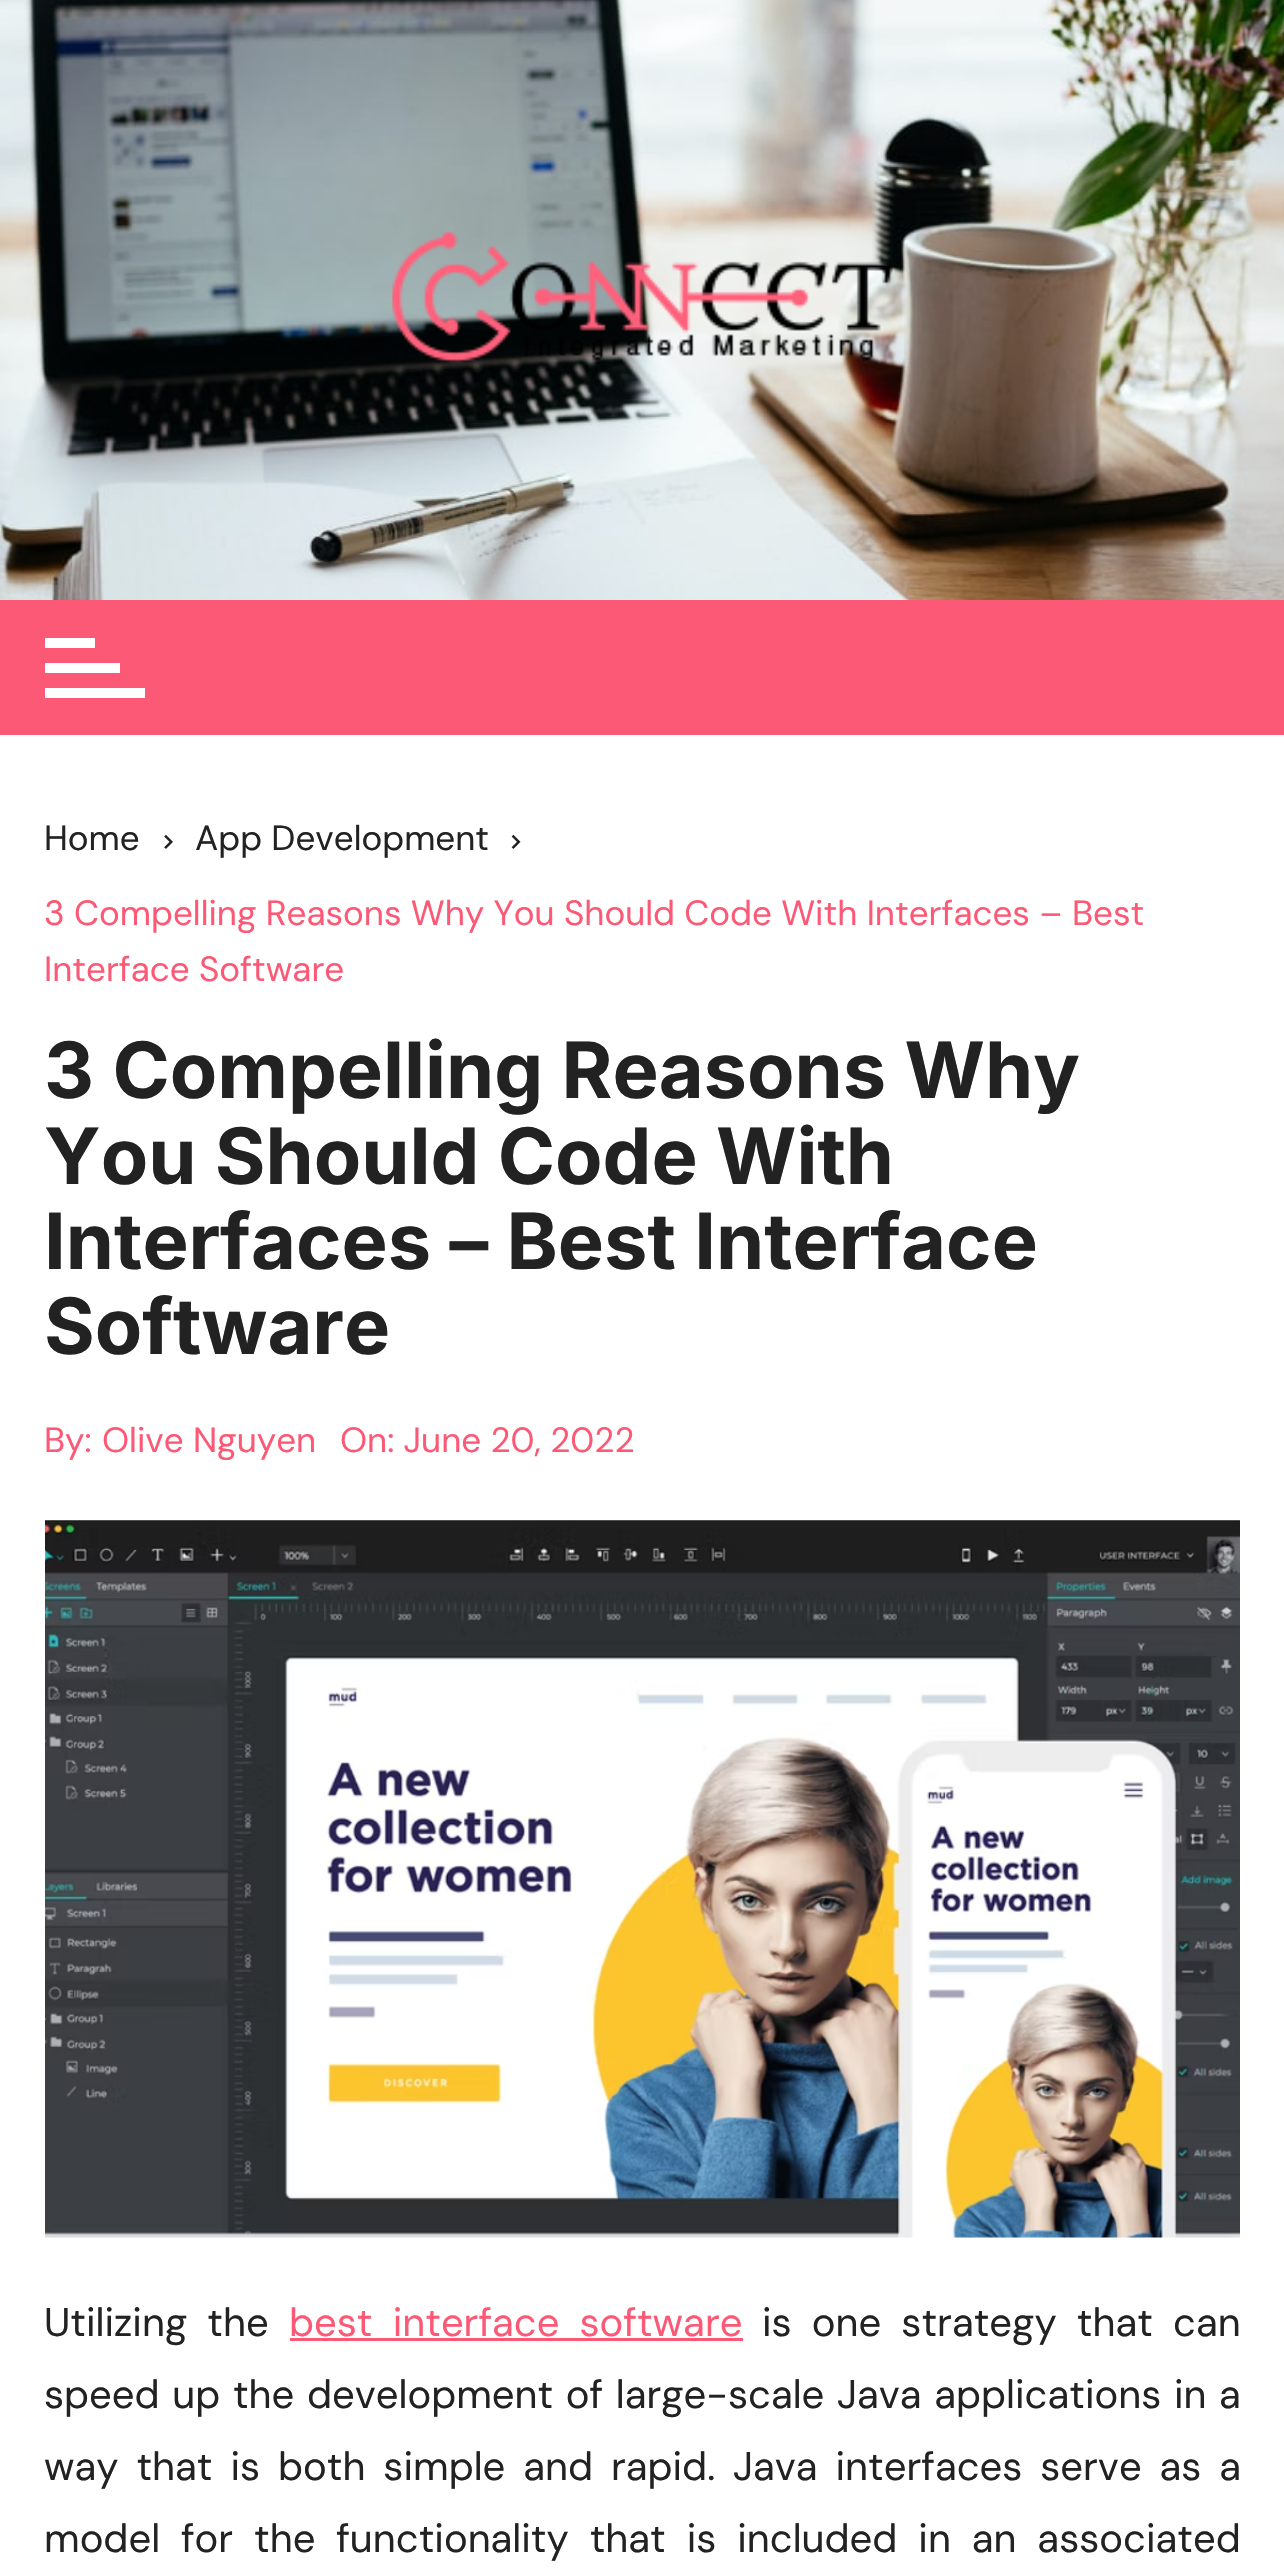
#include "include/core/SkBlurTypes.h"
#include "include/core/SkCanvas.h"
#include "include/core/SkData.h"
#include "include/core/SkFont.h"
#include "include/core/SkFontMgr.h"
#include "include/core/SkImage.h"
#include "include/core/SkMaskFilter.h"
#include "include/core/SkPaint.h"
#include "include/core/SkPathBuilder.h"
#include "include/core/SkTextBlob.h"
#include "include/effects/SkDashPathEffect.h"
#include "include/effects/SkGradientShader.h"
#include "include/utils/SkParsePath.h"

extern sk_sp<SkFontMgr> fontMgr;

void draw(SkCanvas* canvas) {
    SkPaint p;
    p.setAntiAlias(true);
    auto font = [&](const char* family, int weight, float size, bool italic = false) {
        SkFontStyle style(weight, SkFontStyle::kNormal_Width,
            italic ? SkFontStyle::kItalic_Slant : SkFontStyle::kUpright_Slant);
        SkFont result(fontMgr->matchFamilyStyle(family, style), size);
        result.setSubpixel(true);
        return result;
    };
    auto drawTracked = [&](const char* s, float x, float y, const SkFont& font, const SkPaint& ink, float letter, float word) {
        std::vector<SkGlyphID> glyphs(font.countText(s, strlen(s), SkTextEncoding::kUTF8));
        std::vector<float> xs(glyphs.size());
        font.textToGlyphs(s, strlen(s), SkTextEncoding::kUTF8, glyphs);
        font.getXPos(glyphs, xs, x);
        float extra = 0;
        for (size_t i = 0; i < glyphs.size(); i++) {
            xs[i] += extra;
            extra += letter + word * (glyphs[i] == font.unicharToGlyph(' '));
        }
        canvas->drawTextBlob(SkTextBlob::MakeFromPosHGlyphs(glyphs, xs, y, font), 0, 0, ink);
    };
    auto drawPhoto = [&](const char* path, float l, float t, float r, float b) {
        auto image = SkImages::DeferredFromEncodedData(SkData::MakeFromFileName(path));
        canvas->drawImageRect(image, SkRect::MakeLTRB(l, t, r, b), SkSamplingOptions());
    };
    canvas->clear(0xFFFFFFFF);
    drawPhoto("media/1.png", 0, 0, 1284, 600);
    drawPhoto("media/2.png", 392, 231, 893, 364);
    {
        const struct { float l, t, r, b; SkColor color; } items[] = {
            {0, 600, 1284, 735, 0xFFFB5975},
            {45, 638, 95, 648, 0xFFFFFFFF},
            {45, 663, 120, 673, 0xFFFFFFFF},
            {45, 688, 145, 698, 0xFFFFFFFF},
        };
        for (auto [l, t, r, b, color] : items) {
            p.setColor(color);
            canvas->drawRect(SkRect::MakeLTRB(l, t, r, b), p);
        }
    }
    auto font1 = font("DM Sans", 400, 35);
    p.setColor(0xFF222222);
    canvas->drawString("Home", 44, 850, font1, p);
    drawPhoto("media/3.png", 164, 834, 173, 849);
    canvas->drawString("App Development", 195, 850, font1, p);
    drawPhoto("media/4.png", 511, 834, 521, 849);
    p.setColor(0xFFFB5975);
    canvas->drawString("3 Compelling Reasons Why You Should Code With Interfaces – Best", 44, 925, font1, p);
    canvas->drawString("Interface Software", 44, 981, font1, p);
    auto font2 = font("Inter", 700, 77.5f);
    p.setColor(0xFF222222);
    {
        const struct { const char* s; float x, y; } items[] = {
            {"3 Compelling Reasons Why", 44, 1098},
            {"You Should Code With", 44, 1184},
            {"Interfaces – Best Interface", 44, 1269},
            {"Software", 44, 1354},
        };
        for (auto [s, x, y] : items) {
            canvas->drawString(s, x, y, font2, p);
        }
    }
    p.setColor(0xFFFB5975);
    {
        const struct { const char* s; float x, y; } items[] = {
            {"By:", 44, 1452},
            {"Olive Nguyen", 102, 1452},
            {"On: June 20, 2022", 340, 1452},
        };
        for (auto [s, x, y] : items) {
            canvas->drawString(s, x, y, font1, p);
        }
    }
    drawPhoto("media/5.png", 45, 1520, 1240, 2238);
    auto font3 = font("DM Sans", 400, 40);
    p.setColor(0xFF222222);
    drawTracked("Utilizing the", 44, 2336, font3, p, 0, 9.5f);
    p.setColor(0xFFFB5975);
    drawTracked("best interface software", 289, 2336, font3, p, 0, 9.5f);
    canvas->drawRect(SkRect::MakeLTRB(290, 2338, 743, 2341), p);
    p.setColor(0xFF222222);
    drawTracked("is one strategy that can", 762, 2336, font3, p, 0, 9.5f);
    drawTracked("speed up the development of large-scale Java applications in a", 44, 2408, font3, p, 0, 2);
    drawTracked("way that is both simple and rapid. Java interfaces serve as a", 44, 2480, font3, p, 0, 7.25f);
    drawTracked("model for the functionality that is included in an associated", 44, 2552, font3, p, 0, 10.25f);
}
